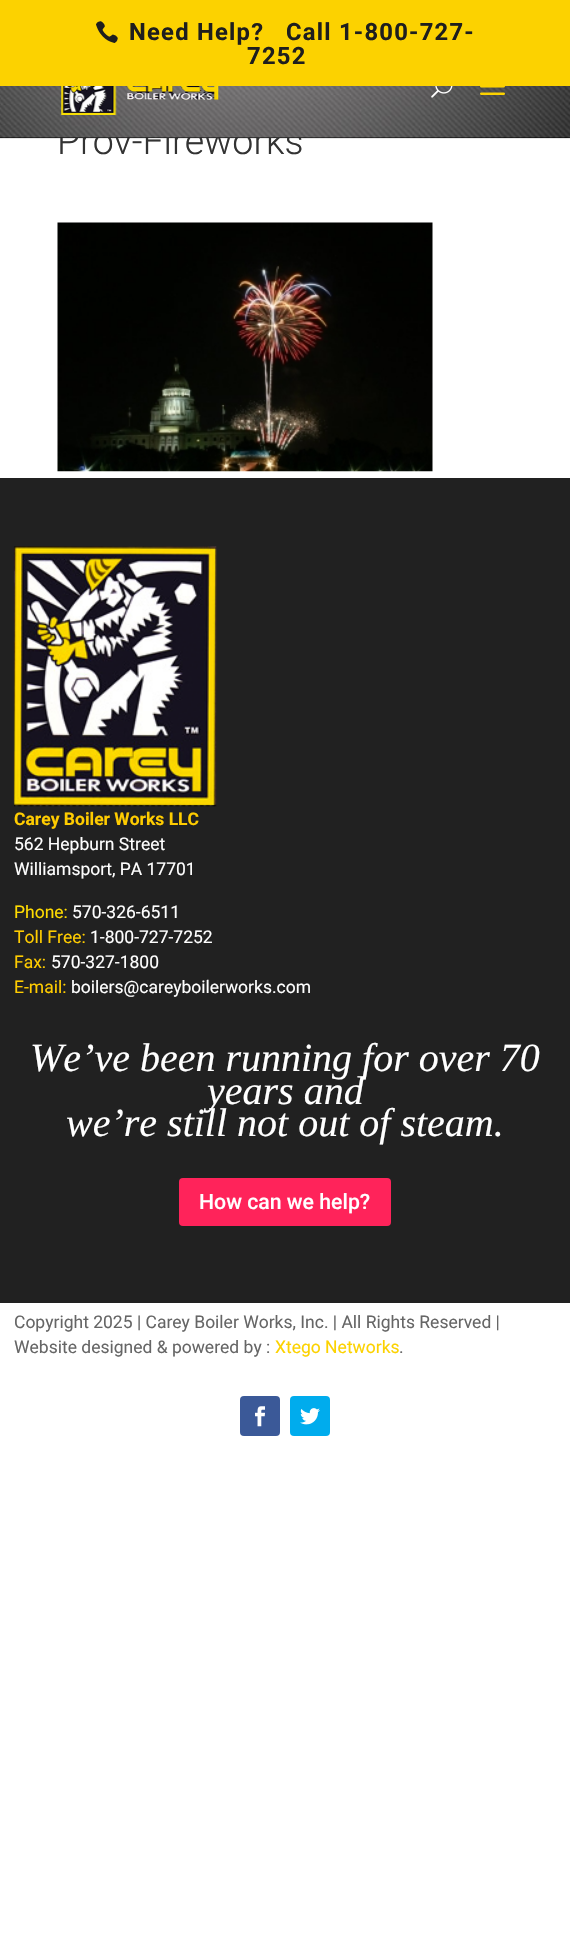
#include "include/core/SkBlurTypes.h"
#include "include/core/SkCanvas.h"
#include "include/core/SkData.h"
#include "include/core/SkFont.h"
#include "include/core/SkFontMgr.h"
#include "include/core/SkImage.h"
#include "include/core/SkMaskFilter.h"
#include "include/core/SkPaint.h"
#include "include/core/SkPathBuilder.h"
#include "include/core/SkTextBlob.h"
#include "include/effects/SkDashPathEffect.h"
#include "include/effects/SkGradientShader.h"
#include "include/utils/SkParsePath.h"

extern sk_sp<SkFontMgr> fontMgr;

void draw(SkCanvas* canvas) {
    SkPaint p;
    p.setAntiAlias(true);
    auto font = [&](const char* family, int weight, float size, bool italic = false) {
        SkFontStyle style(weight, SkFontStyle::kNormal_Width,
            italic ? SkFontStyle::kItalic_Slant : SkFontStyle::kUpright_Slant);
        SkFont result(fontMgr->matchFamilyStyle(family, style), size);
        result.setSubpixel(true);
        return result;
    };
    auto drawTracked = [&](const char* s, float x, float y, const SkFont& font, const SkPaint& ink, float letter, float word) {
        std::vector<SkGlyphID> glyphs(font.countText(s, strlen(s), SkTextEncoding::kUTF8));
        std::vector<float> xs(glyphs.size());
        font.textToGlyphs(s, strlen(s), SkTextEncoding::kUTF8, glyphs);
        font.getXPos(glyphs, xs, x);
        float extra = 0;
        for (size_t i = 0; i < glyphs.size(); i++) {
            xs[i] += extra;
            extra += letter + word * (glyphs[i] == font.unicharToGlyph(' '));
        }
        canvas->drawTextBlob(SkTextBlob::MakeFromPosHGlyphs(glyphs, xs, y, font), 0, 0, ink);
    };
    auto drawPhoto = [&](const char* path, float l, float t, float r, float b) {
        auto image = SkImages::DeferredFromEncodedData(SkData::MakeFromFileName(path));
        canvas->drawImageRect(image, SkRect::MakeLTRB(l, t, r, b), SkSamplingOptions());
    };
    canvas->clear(0xFFFFFFFF);
    p.setColor(0xFFFCD200);
    canvas->drawRect(SkRect::MakeLTRB(0, 0, 570, 86), p);
    drawPhoto("media/1.png", 96, 21, 118, 43);
    auto font1 = font("Roboto", 700, 23.75f);
    p.setColor(0xFF1E1E1E);
    {
        const struct { const char* s; float x, y; } items[] = {
            {"Need Help?", 129, 40},
            {"Call 1-800-727-", 286, 40},
            {"7252", 247, 64},
        };
        for (auto [s, x, y] : items) {
            drawTracked(s, x, y, font1, p, 1.25f, 0);
        }
    }
    p.setColor(0x1A000000);
    canvas->drawRect(SkRect::MakeLTRB(0, 138, 570, 139), p);
    auto font2 = font("Roboto", 300, 37.5f);
    p.setColor(0xFF333333);
    canvas->drawString("Prov-Fireworks", 57, 154, font2, p);
    p.setColor(0xFF000000);
    canvas->drawRect(SkRect::MakeLTRB(0, 137, 570, 138), p);
    drawPhoto("media/2.png", 0, 86, 570, 138);
    drawPhoto("media/3.png", 61, 86, 219, 115);
    drawPhoto("media/4.png", 431, 86, 453, 98);
    drawPhoto("media/5.png", 480, 86, 505, 95);
    drawPhoto("media/6.png", 57, 222, 433, 472);
    p.setColor(0xFF212121);
    canvas->drawRect(SkRect::MakeLTRB(0, 478, 570, 1303), p);
    drawPhoto("media/7.png", 13, 546, 217, 807);
    auto font3 = font("Roboto", 700, 17.5f);
    p.setColor(0xFFFFCC00);
    canvas->drawString("Carey Boiler Works LLC", 14, 825, font3, p);
    auto font4 = font("Roboto", 400, 17.5f);
    p.setColor(0xFFFFFFFF);
    canvas->drawString("562 Hepburn Street", 14, 850, font4, p);
    canvas->drawString("Williamsport, PA 17701", 14, 875, font4, p);
    p.setColor(0xFFFFDB00);
    canvas->drawString("Phone:", 14, 918, font4, p);
    p.setColor(0xFFFFFFFF);
    canvas->drawString("570-326-6511", 72, 918, font4, p);
    p.setColor(0xFFFFCC00);
    canvas->drawString("Toll Free:", 14, 943, font4, p);
    p.setColor(0xFFFFFFFF);
    canvas->drawString("1-800-727-7252", 90, 943, font4, p);
    p.setColor(0xFFFFCC00);
    canvas->drawString("Fax:", 14, 968, font4, p);
    p.setColor(0xFFFFFFFF);
    canvas->drawString("570-327-1800", 51, 968, font4, p);
    p.setColor(0xFFFFCC00);
    canvas->drawString("E-mail:", 14, 993, font4, p);
    p.setColor(0xFFFFFFFF);
    canvas->drawString("boilers@careyboilerworks.com", 71, 993, font4, p);
    auto font5 = font("Liberation Serif", 400, 40, true);
    {
        const struct { const char* s; float x, y; } items[] = {
            {"We’ve been running for over 70", 30, 1071},
            {"years and", 207, 1104},
            {"we’re still not out of steam.", 66, 1136},
        };
        for (auto [s, x, y] : items) {
            canvas->drawString(s, x, y, font5, p);
        }
    }
    p.setColor(0xFFFF235A);
    canvas->drawRoundRect(SkRect::MakeLTRB(179, 1178, 391, 1226), 4, 4, p);
    auto font6 = font("Roboto", 500, 21.25f);
    p.setColor(0xFFFFFFFF);
    canvas->drawString("How can we help?", 199, 1209, font6, p);
    p.setColor(0xFF666666);
    canvas->drawString("Copyright 2025 | Carey Boiler Works, Inc. | All Rights Reserved |", 14, 1328, font4, p);
    canvas->drawString("Website designed & powered by :", 14, 1353, font4, p);
    p.setColor(0xFFFCD200);
    canvas->drawString("Xtego Networks", 275, 1353, font4, p);
    p.setColor(0xFF666666);
    canvas->drawString(".", 399, 1353, font4, p);
    p.setColor(0xFF3B5998);
    canvas->drawRoundRect(SkRect::MakeLTRB(240, 1396, 280, 1436), 4, 4, p);
    drawPhoto("media/8.png", 255, 1406, 265, 1427);
    p.setColor(0xFF00ACED);
    canvas->drawRoundRect(SkRect::MakeLTRB(290, 1396, 330, 1436), 4, 4, p);
    drawPhoto("media/9.png", 300, 1408, 320, 1425);
}
